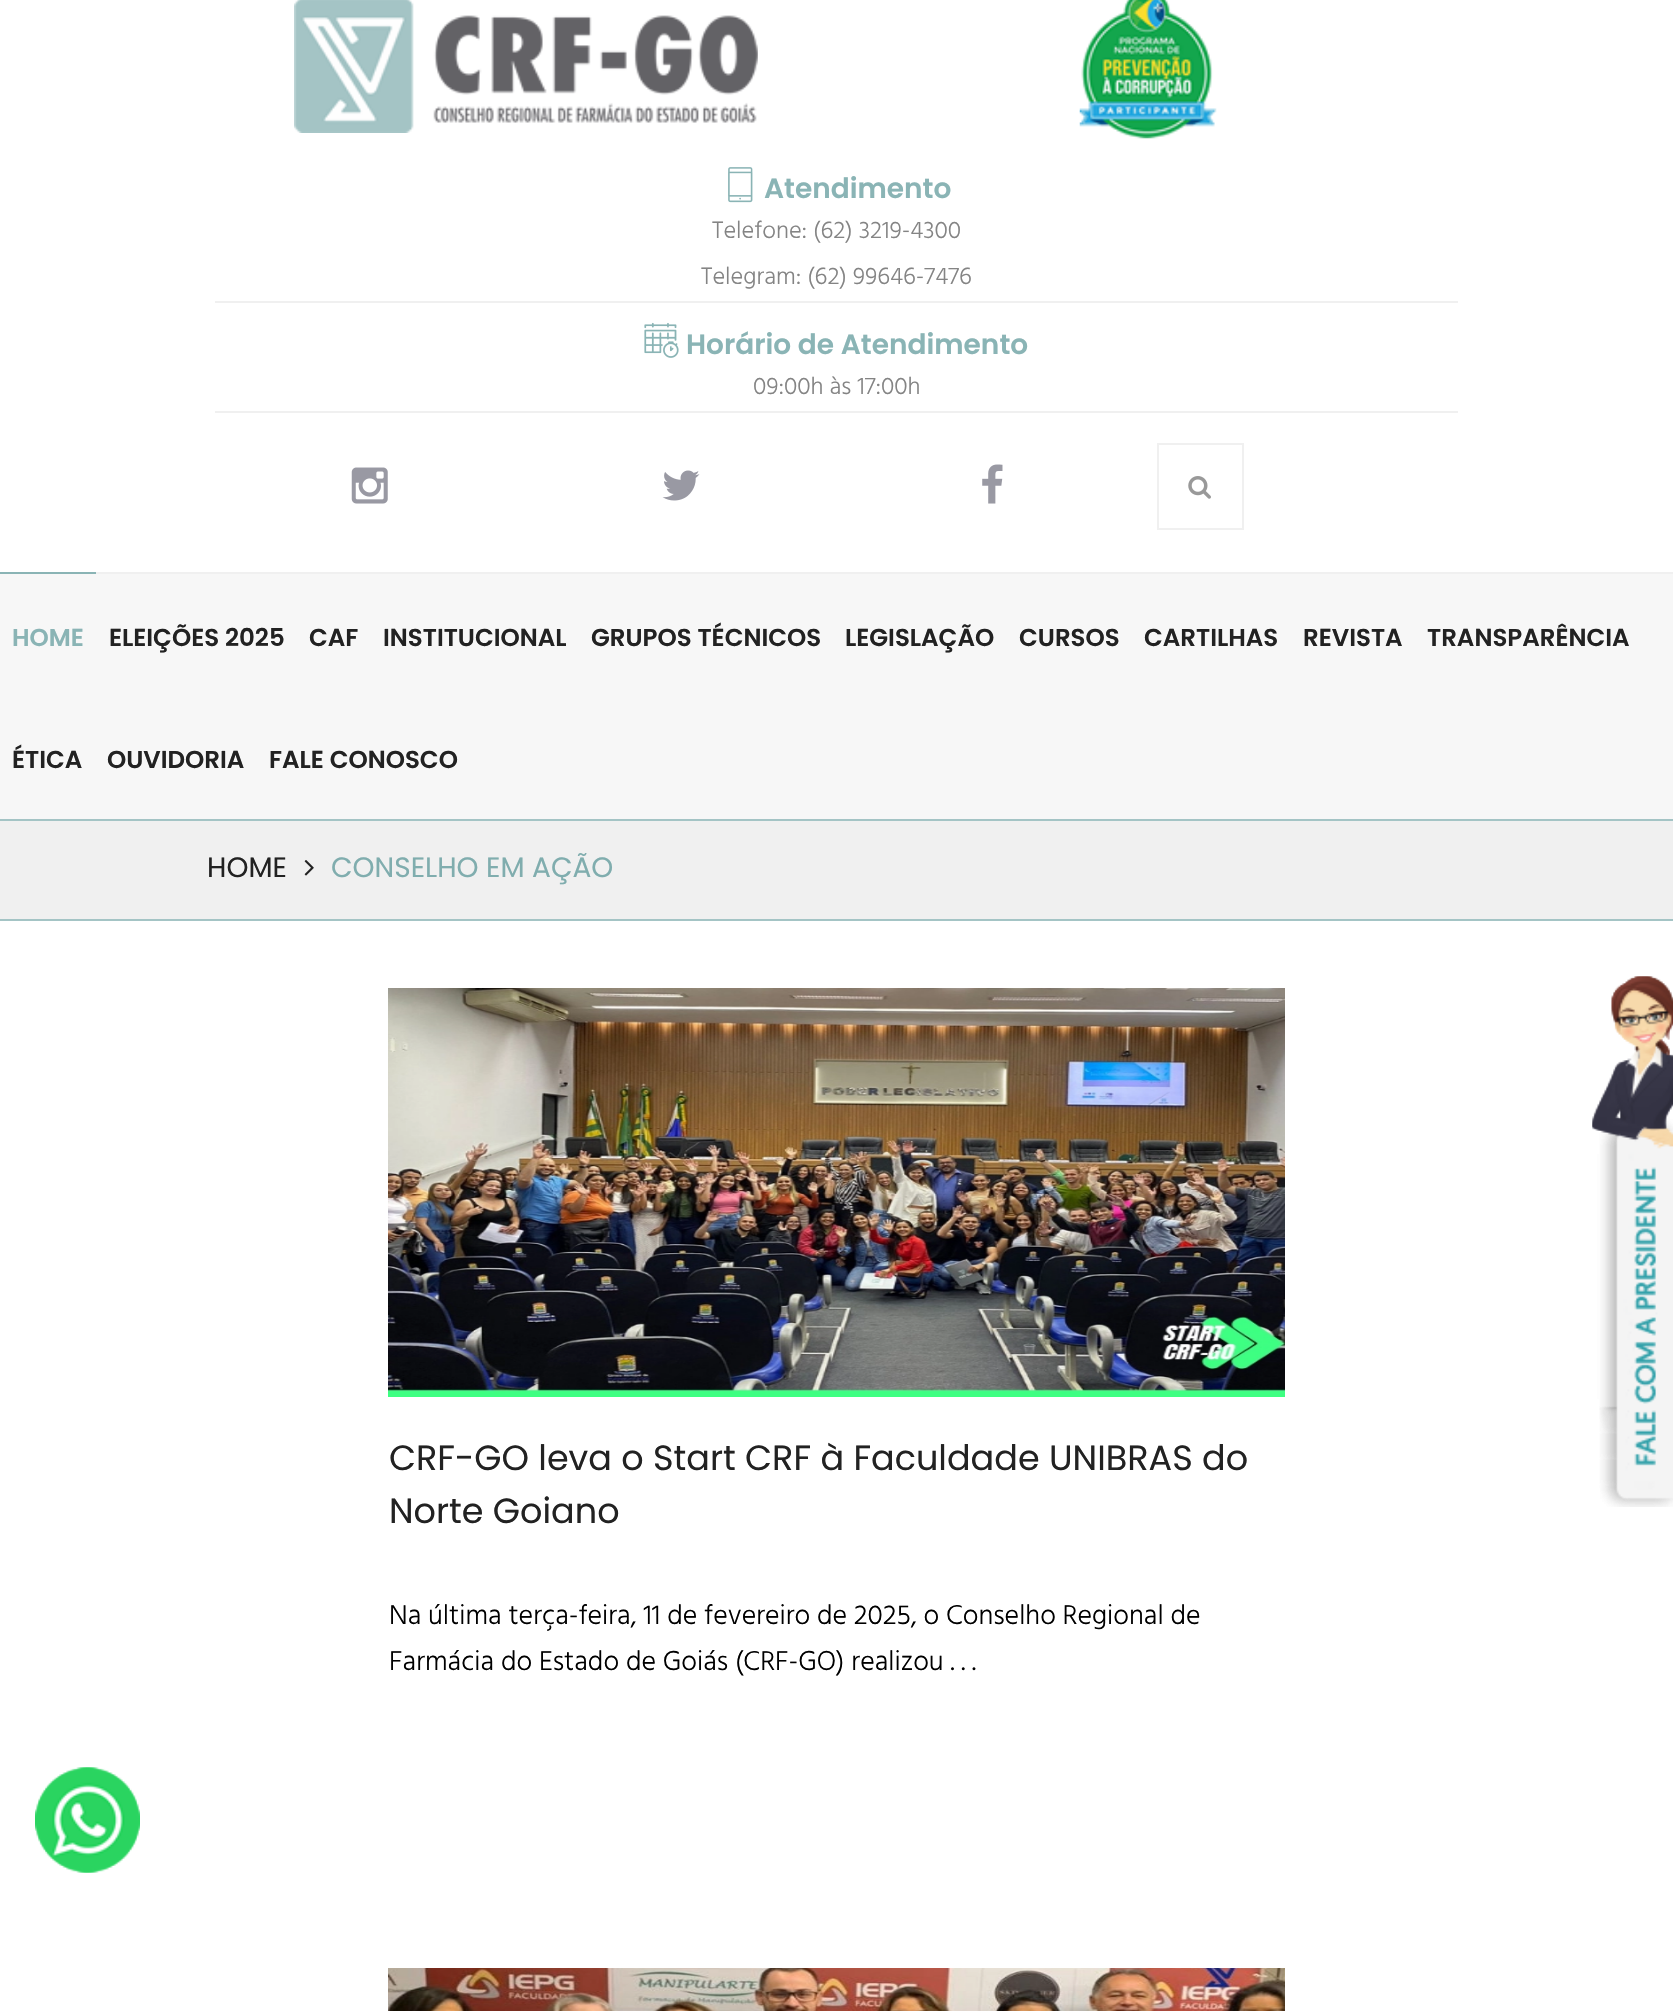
#include "include/core/SkBlurTypes.h"
#include "include/core/SkCanvas.h"
#include "include/core/SkData.h"
#include "include/core/SkFont.h"
#include "include/core/SkFontMgr.h"
#include "include/core/SkImage.h"
#include "include/core/SkMaskFilter.h"
#include "include/core/SkPaint.h"
#include "include/core/SkPathBuilder.h"
#include "include/core/SkTextBlob.h"
#include "include/effects/SkDashPathEffect.h"
#include "include/effects/SkGradientShader.h"
#include "include/utils/SkParsePath.h"

extern sk_sp<SkFontMgr> fontMgr;

void draw(SkCanvas* canvas) {
    SkPaint p;
    p.setAntiAlias(true);
    auto font = [&](const char* family, int weight, float size, bool italic = false) {
        SkFontStyle style(weight, SkFontStyle::kNormal_Width,
            italic ? SkFontStyle::kItalic_Slant : SkFontStyle::kUpright_Slant);
        SkFont result(fontMgr->matchFamilyStyle(family, style), size);
        result.setSubpixel(true);
        return result;
    };
    auto drawPhoto = [&](const char* path, float l, float t, float r, float b) {
        auto image = SkImages::DeferredFromEncodedData(SkData::MakeFromFileName(path));
        canvas->drawImageRect(image, SkRect::MakeLTRB(l, t, r, b), SkSamplingOptions());
    };
    canvas->clear(0xFFFFFFFF);
    drawPhoto("media/1.png", 294, 0, 758, 133);
    drawPhoto("media/2.png", 1079, 0, 1217, 139);
    p.setColor(0xFFF0F0F0);
    canvas->drawRect(SkRect::MakeLTRB(215, 301, 1458, 303), p);
    drawPhoto("media/3.png", 728, 167, 753, 203);
    auto font1 = font("Poppins", 600, 28);
    p.setColor(0xFF8AB4B5);
    canvas->drawString("Atendimento", 764, 198, font1, p);
    auto font2 = font("Hind", 300, 24.5f);
    p.setColor(0xFF848484);
    canvas->drawString("Telefone: (62) 3219-4300", 712, 238, font2, p);
    canvas->drawString("Telegram: (62) 99646-7476", 701, 284, font2, p);
    p.setColor(0xFFF0F0F0);
    canvas->drawRect(SkRect::MakeLTRB(215, 411, 1458, 413), p);
    drawPhoto("media/4.png", 644, 322, 679, 358);
    p.setColor(0xFF8AB4B5);
    canvas->drawString("Horário de Atendimento", 686, 354, font1, p);
    p.setColor(0xFF848484);
    canvas->drawString("09:00h às 17:00h", 753, 394, font2, p);
    drawPhoto("media/5.png", 351, 467, 388, 504);
    drawPhoto("media/6.png", 662, 470, 700, 501);
    drawPhoto("media/7.png", 982, 464, 1003, 504);
    p.setStyle(SkPaint::kStroke_Style);
    p.setStrokeWidth(2);
    p.setColor(0xFFF0F0F0);
    canvas->drawRect(SkRect::MakeLTRB(1158, 444, 1243, 529), p);
    drawPhoto("media/8.png", 1188, 476, 1211, 499);
    p.setStyle(SkPaint::kFill_Style);
    {
        const struct { float l, t, r, b; SkColor color; } items[] = {
            {0, 574, 1673, 819, 0xFFF7F7F7},
            {96, 572, 1673, 574, 0xFFF0F0F0},
            {0, 572, 96, 574, 0xFF8AB4B5},
        };
        for (auto [l, t, r, b, color] : items) {
            p.setColor(color);
            canvas->drawRect(SkRect::MakeLTRB(l, t, r, b), p);
        }
    }
    auto font3 = font("Poppins", 600, 24.5f);
    canvas->drawString("HOME", 12, 646, font3, p);
    p.setColor(0xFF222222);
    {
        const struct { const char* s; float x, y; } items[] = {
            {"ELEIÇÕES 2025", 109, 646},
            {"CAF", 309, 646},
            {"INSTITUCIONAL", 383, 646},
            {"GRUPOS TÉCNICOS", 591, 646},
            {"LEGISLAÇÃO", 845, 646},
            {"CURSOS", 1019, 646},
            {"CARTILHAS", 1144, 646},
            {"REVISTA", 1303, 646},
            {"TRANSPARÊNCIA", 1427, 646},
            {"ÉTICA", 12, 768},
            {"OUVIDORIA", 107, 768},
            {"FALE CONOSCO", 269, 768},
        };
        for (auto [s, x, y] : items) {
            canvas->drawString(s, x, y, font3, p);
        }
    }
    {
        const struct { float l, t, r, b; SkColor color; } items[] = {
            {0, 821, 1673, 919, 0xFFF0F0F0},
            {0, 819, 1673, 821, 0xFFA4C4C5},
            {0, 919, 1673, 921, 0xFFA4C4C5},
        };
        for (auto [l, t, r, b, color] : items) {
            p.setColor(color);
            canvas->drawRect(SkRect::MakeLTRB(l, t, r, b), p);
        }
    }
    auto font4 = font("Poppins", 400, 28);
    p.setColor(0xFF222222);
    canvas->drawString("HOME", 207, 877, font4, p);
    drawPhoto("media/9.png", 304, 860, 314, 876);
    p.setColor(0xFF80ADAE);
    canvas->drawString("CONSELHO EM AÇÃO", 331, 877, font4, p);
    drawPhoto("media/10.png", 1592, 976, 1673, 1507);
    drawPhoto("media/11.png", 388, 988, 1285, 1397);
    auto font5 = font("Poppins", 400, 35);
    p.setColor(0xFF222222);
    canvas->drawString("CRF-GO leva o Start CRF à Faculdade UNIBRAS do", 389, 1470, font5, p);
    canvas->drawString("Norte Goiano", 389, 1523, font5, p);
    auto font6 = font("Hind", 300, 28);
    p.setColor(0xFF000000);
    canvas->drawString("Na última terça-feira, 11 de fevereiro de 2025, o Conselho Regional de", 389, 1624, font6, p);
    canvas->drawString("Farmácia do Estado de Goiás (CRF-GO) realizou . . .", 389, 1670, font6, p);
    drawPhoto("media/12.png", 388, 1968, 1285, 2011);
    drawPhoto("media/13.png", 1592, 976, 1673, 1507);
    drawPhoto("media/14.png", 35, 1767, 140, 1873);
    drawPhoto("media/15.png", 35, 1767, 140, 1873);
}
